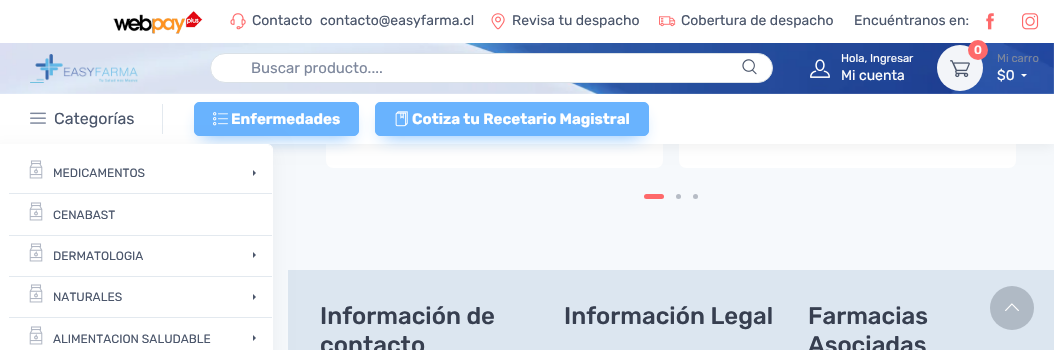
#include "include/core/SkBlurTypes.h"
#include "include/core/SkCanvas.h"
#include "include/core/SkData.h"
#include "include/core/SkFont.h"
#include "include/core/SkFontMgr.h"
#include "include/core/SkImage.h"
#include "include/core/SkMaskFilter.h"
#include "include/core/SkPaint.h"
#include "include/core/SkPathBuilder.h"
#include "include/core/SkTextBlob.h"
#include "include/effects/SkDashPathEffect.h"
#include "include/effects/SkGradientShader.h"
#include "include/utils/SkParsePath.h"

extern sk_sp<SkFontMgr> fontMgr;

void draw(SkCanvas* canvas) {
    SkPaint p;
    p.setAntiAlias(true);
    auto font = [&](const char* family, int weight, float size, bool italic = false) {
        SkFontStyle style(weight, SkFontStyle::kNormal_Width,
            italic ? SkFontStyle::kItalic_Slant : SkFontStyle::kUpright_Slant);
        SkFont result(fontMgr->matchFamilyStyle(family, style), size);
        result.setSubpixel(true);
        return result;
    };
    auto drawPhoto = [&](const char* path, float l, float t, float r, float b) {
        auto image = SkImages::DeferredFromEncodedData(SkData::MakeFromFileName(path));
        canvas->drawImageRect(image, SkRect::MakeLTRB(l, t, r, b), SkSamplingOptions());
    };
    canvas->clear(0xFFF6F9FC);
    p.setColor(0xFFFFFFFF);
    canvas->drawRoundRect(SkRect::MakeLTRB(326, -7, 663, 168), 7, 7, p);
    canvas->drawRoundRect(SkRect::MakeLTRB(679, -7, 1016, 168), 7, 7, p);
    p.setColor(0x0F000000);
    p.setMaskFilter(SkMaskFilter::MakeBlur(kNormal_SkBlurStyle, 6));
    canvas->drawRect(SkRect::MakeLTRB(1, 5, 1053, 147), p);
    p.setMaskFilter(nullptr);
    p.setColor(0xFFFFFFFF);
    canvas->drawRect(SkRect::MakeLTRB(0, 0, 1054, 144), p);
    drawPhoto("media/1.png", 113, 10, 203, 34);
    drawPhoto("media/2.png", 230, 13, 246, 30);
    auto font1 = font("Rubik", 400, 14);
    p.setColor(0xFF4B566B);
    canvas->drawString("Contacto", 252, 25, font1, p);
    canvas->drawString("contacto@easyfarma.cl", 320, 25, font1, p);
    drawPhoto("media/3.png", 491, 13, 505, 30);
    canvas->drawString("Revisa tu despacho", 512, 25, font1, p);
    drawPhoto("media/4.png", 659, 16, 676, 27);
    canvas->drawString("Cobertura de despacho", 681, 25, font1, p);
    canvas->drawString("Encuéntranos en:", 854, 25, font1, p);
    drawPhoto("media/5.png", 986, 13, 994, 30);
    drawPhoto("media/6.png", 1022, 13, 1039, 30);
    drawPhoto("media/7.png", 0, 43, 1054, 94);
    drawPhoto("media/8.png", 30, 54, 138, 83);
    p.setColor(0xFFFFFFFF);
    canvas->drawRoundRect(SkRect::MakeLTRB(210.5f, 53.5f, 772.5f, 82.5f), 14.5f, 14.5f, p);
    p.setStyle(SkPaint::kStroke_Style);
    p.setStrokeWidth(1);
    p.setColor(0xFFDAE1E7);
    canvas->drawRoundRect(SkRect::MakeLTRB(210.5f, 53.5f, 772.5f, 82.5f), 14.5f, 14.5f, p);
    auto font2 = font("Rubik", 400, 15);
    p.setStyle(SkPaint::kFill_Style);
    p.setColor(0xFF7D879C);
    canvas->drawString("Buscar producto....", 251, 73, font2, p);
    drawPhoto("media/9.png", 742, 59, 757, 75);
    drawPhoto("media/10.png", 810, 59, 830, 78);
    auto font3 = font("Rubik", 400, 11.25f);
    p.setColor(0xFFFFFFFF);
    canvas->drawString("Hola, Ingresar", 841, 62, font3, p);
    canvas->drawString("Mi cuenta", 841, 80, font1, p);
    p.setColor(0xFFF3F5F9);
    canvas->drawCircle(960, 68, 23, p);
    p.setColor(0xFFFE696A);
    canvas->drawCircle(978, 50, 10, p);
    auto font4 = font("Rubik", 500, 12);
    p.setColor(0xFFFFFFFF);
    canvas->drawString("0", 974, 54, font4, p);
    drawPhoto("media/11.png", 950, 60, 970, 78);
    p.setColor(0xFF7D879C);
    canvas->drawString("Mi carro", 997, 62, font3, p);
    p.setColor(0xFFFFFFFF);
    canvas->drawString("$0", 997, 80, font1, p);
    canvas->drawPath(SkPathBuilder().moveTo(1021, 74).lineTo(1027, 74).lineTo(1024, 77).close().detach(), p);
    p.setColor(0xFFE3E9EF);
    canvas->drawRect(SkRect::MakeLTRB(162, 104, 163, 134), p);
    drawPhoto("media/12.png", 30, 112, 46, 124);
    auto font5 = font("Rubik", 400, 16);
    p.setColor(0xFF4B566B);
    canvas->drawString("Categorías", 54, 124, font5, p);
    p.setColor(0xE669B3FE);
    p.setMaskFilter(SkMaskFilter::MakeBlur(kNormal_SkBlurStyle, 9));
    canvas->drawRect(SkRect::MakeLTRB(202, 118, 351, 136), p);
    p.setMaskFilter(nullptr);
    p.setColor(0xFF69B3FE);
    canvas->drawRoundRect(SkRect::MakeLTRB(194.5f, 102.5f, 358.5f, 135.5f), 4.5f, 4.5f, p);
    p.setStyle(SkPaint::kStroke_Style);
    canvas->drawRoundRect(SkRect::MakeLTRB(194.5f, 102.5f, 358.5f, 135.5f), 4.5f, 4.5f, p);
    drawPhoto("media/14.png", 213, 112, 228, 126);
    p.setStyle(SkPaint::kFill_Style);
    p.setColor(0xFFDCE6F0);
    canvas->drawRect(SkRect::MakeLTRB(288, 270, 1054, 350), p);
    p.setColor(0x0D000000);
    p.setMaskFilter(SkMaskFilter::MakeBlur(kNormal_SkBlurStyle, 10));
    canvas->drawRoundRect(SkRect::MakeLTRB(-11, 149, 272, 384), 4, 4, p);
    p.setMaskFilter(nullptr);
    p.setColor(0xFFFFFFFF);
    canvas->drawRoundRect(SkRect::MakeLTRB(-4, 145, 272, 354), 4, 4, p);
    p.setStyle(SkPaint::kStroke_Style);
    canvas->drawRoundRect(SkRect::MakeLTRB(-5.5f, 144.5f, 272.5f, 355.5f), 4.5f, 4.5f, p);
    p.setStyle(SkPaint::kFill_Style);
    p.setColor(0xFFE3E9EF);
    canvas->drawRect(SkRect::MakeLTRB(9, 193, 272, 194), p);
    drawPhoto("media/13.png", 29, 160, 43, 179);
    auto font6 = font("Rubik", 400, 12);
    p.setColor(0xFF4B566B);
    canvas->drawString("MEDICAMENTOS", 53, 177, font6, p);
    canvas->drawPath(SkPathBuilder().moveTo(253, 176).lineTo(253, 170).lineTo(256, 173).close().detach(), p);
    p.setColor(0xFFE3E9EF);
    canvas->drawRect(SkRect::MakeLTRB(9, 235, 272, 236), p);
    drawPhoto("media/13.png", 29, 202, 43, 221);
    p.setColor(0xFF4B566B);
    canvas->drawString("CENABAST", 53, 219, font6, p);
    p.setColor(0xFFE3E9EF);
    canvas->drawRect(SkRect::MakeLTRB(9, 276, 272, 277), p);
    drawPhoto("media/13.png", 29, 243, 43, 262);
    p.setColor(0xFF4B566B);
    canvas->drawString("DERMATOLOGIA", 53, 260, font6, p);
    canvas->drawPath(SkPathBuilder().moveTo(253, 258).lineTo(253, 252).lineTo(256, 255).close().detach(), p);
    p.setColor(0xFFE3E9EF);
    canvas->drawRect(SkRect::MakeLTRB(9, 317, 272, 318), p);
    drawPhoto("media/13.png", 29, 284, 43, 303);
    p.setColor(0xFF4B566B);
    canvas->drawString("NATURALES", 53, 301, font6, p);
    canvas->drawPath(SkPathBuilder().moveTo(253, 300).lineTo(253, 294).lineTo(256, 297).close().detach(), p);
    drawPhoto("media/13.png", 29, 326, 43, 345);
    canvas->drawString("ALIMENTACION SALUDABLE", 53, 343, font6, p);
    canvas->drawPath(SkPathBuilder().moveTo(253, 341).lineTo(253, 335).lineTo(256, 338).close().detach(), p);
    auto font7 = font("Rubik", 700, 15);
    p.setColor(0xFFFFFFFF);
    canvas->drawString("Enfermedades", 231, 124, font7, p);
    p.setColor(0xE669B3FE);
    p.setMaskFilter(SkMaskFilter::MakeBlur(kNormal_SkBlurStyle, 9));
    canvas->drawRect(SkRect::MakeLTRB(383, 118, 641, 136), p);
    p.setMaskFilter(nullptr);
    p.setColor(0xFF69B3FE);
    canvas->drawRoundRect(SkRect::MakeLTRB(375.5f, 102.5f, 648.5f, 135.5f), 4.5f, 4.5f, p);
    p.setStyle(SkPaint::kStroke_Style);
    canvas->drawRoundRect(SkRect::MakeLTRB(375.5f, 102.5f, 648.5f, 135.5f), 4.5f, 4.5f, p);
    drawPhoto("media/15.png", 395, 111, 408, 127);
    p.setStyle(SkPaint::kFill_Style);
    p.setColor(0xFFFFFFFF);
    canvas->drawString("Cotiza tu Recetario Magistral", 412, 124, font7, p);
    p.setColor(0xFFFE696A);
    canvas->drawRoundRect(SkRect::MakeLTRB(644, 194, 664, 199), 2.5f, 2.5f, p);
    p.setColor(0xFFB6BCC5);
    canvas->drawCircle(678.5f, 196.5f, 2.5f, p);
    canvas->drawCircle(695.5f, 196.5f, 2.5f, p);
    auto font8 = font("Rubik", 500, 24);
    p.setColor(0xFF373F50);
    {
        const struct { const char* s; float x, y; } items[] = {
            {"Información de", 320, 324},
            {"contacto", 320, 353},
            {"Información Legal", 564, 324},
            {"Farmacias", 808, 324},
            {"Asociadas", 808, 353},
        };
        for (auto [s, x, y] : items) {
            canvas->drawString(s, x, y, font8, p);
        }
    }
    p.setColor(0xFFB0BAC5);
    canvas->drawCircle(1012, 308, 22, p);
    drawPhoto("media/16.png", 1005, 303, 1019, 311);
}
